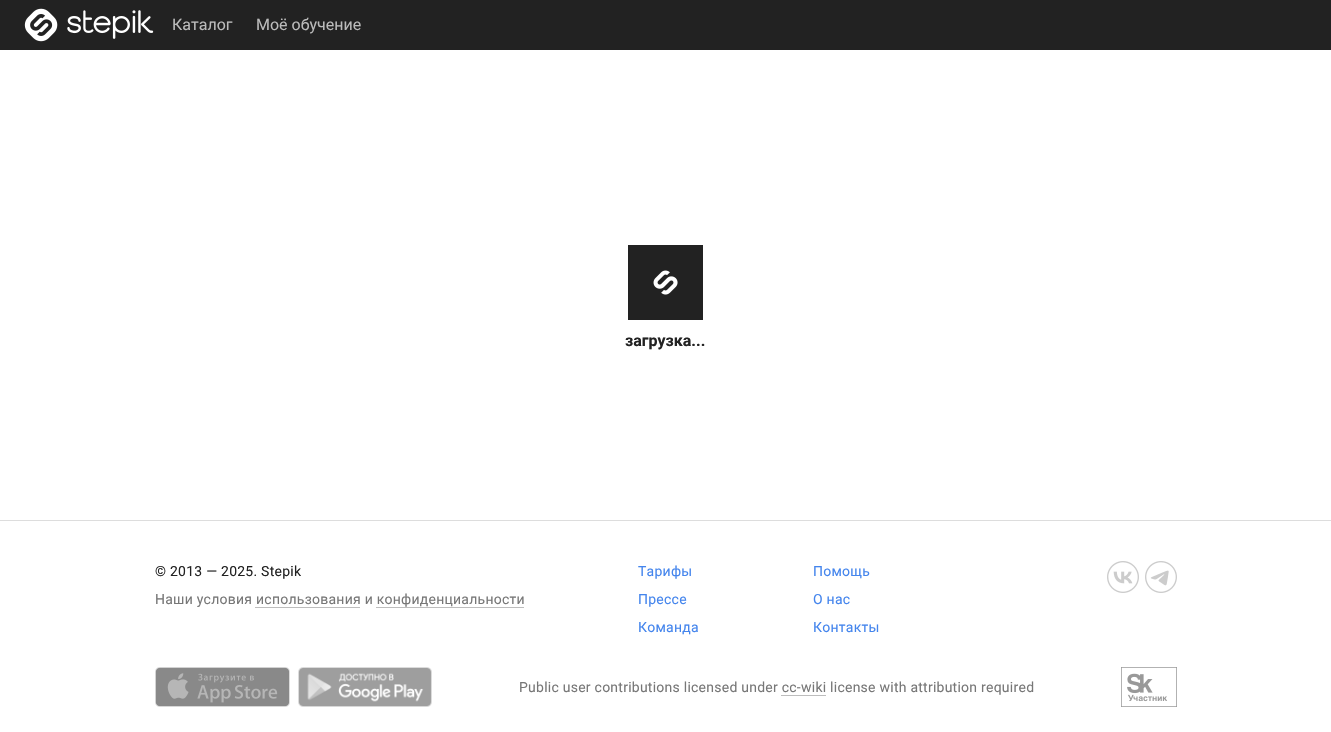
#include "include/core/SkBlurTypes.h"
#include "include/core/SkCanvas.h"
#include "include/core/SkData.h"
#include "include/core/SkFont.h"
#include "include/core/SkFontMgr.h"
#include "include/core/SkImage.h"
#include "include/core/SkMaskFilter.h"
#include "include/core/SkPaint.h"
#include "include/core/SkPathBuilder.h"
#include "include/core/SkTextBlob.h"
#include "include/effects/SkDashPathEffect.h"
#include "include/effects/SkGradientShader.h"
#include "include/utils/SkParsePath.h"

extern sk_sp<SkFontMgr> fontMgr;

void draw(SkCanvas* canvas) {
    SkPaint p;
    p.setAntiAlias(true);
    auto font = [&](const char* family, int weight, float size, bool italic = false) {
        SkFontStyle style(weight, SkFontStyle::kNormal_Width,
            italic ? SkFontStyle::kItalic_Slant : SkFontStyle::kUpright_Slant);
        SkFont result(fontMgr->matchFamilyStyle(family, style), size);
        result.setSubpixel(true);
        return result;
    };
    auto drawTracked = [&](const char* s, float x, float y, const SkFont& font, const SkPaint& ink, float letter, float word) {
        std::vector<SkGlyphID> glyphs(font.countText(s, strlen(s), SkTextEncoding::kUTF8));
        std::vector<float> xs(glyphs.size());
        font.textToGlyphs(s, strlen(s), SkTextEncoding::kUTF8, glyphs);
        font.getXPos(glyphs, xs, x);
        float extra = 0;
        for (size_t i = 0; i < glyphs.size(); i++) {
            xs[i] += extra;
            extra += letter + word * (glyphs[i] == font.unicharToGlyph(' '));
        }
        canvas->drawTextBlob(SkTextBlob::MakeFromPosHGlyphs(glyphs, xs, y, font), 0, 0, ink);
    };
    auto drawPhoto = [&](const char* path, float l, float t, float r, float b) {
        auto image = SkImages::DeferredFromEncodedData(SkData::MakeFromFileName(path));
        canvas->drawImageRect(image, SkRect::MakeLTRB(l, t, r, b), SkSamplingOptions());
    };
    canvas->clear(0xFFFFFFFF);
    p.setColor(0xFF222222);
    canvas->drawRect(SkRect::MakeLTRB(0, 0, 1331, 50), p);
    drawPhoto("media/1.png", 24, 8, 154, 42);
    auto font1 = font("Roboto", 400, 16);
    p.setColor(0xFFBBBBBB);
    canvas->drawString("Каталог", 172, 30, font1, p);
    canvas->drawString("Моё обучение", 256, 30, font1, p);
    p.setColor(0xFF222222);
    canvas->drawRect(SkRect::MakeLTRB(628, 245, 703, 320), p);
    drawPhoto("media/2.png", 653, 270, 678, 295);
    auto font2 = font("Roboto", 700, 16);
    canvas->drawString("загрузка...", 625, 346, font2, p);
    p.setColor(0xFFDDDDDD);
    canvas->drawRect(SkRect::MakeLTRB(0, 520, 1331, 521), p);
    auto font3 = font("Roboto", 400, 14);
    p.setColor(0xFF222222);
    drawTracked("© 2013 — 2025. Stepik", 155, 576, font3, p, 0.25f, 0);
    p.setColor(0xFF777777);
    drawTracked("Наши условия использования и конфиденциальности", 155, 604, font3, p, 0.25f, 0);
    p.setColor(0xFFBDBDBD);
    canvas->drawRect(SkRect::MakeLTRB(255, 607, 360, 608), p);
    canvas->drawRect(SkRect::MakeLTRB(376, 607, 524, 608), p);
    p.setColor(0xFF4485ED);
    {
        const struct { const char* s; float x, y; } items[] = {
            {"Тарифы", 638, 576},
            {"Прессе", 638, 604},
            {"Команда", 638, 632},
            {"Помощь", 813, 576},
            {"О нас", 813, 604},
            {"Контакты", 813, 632},
        };
        for (auto [s, x, y] : items) {
            drawTracked(s, x, y, font3, p, 0.25f, 0);
        }
    }
    drawPhoto("media/3.png", 1107, 561, 1139, 593);
    drawPhoto("media/4.png", 1145, 561, 1177, 593);
    drawPhoto("media/5.png", 155, 667, 290, 707);
    drawPhoto("media/6.png", 298, 667, 432, 707);
    p.setColor(0xFF777777);
    drawTracked("Public user contributions licensed under cc-wiki license with attribution required", 519, 692, font3, p, 0.25f, 0);
    p.setColor(0xFFBDBDBD);
    canvas->drawRect(SkRect::MakeLTRB(781, 695, 826, 696), p);
    drawPhoto("media/7.png", 1121, 667, 1177, 707);
}
